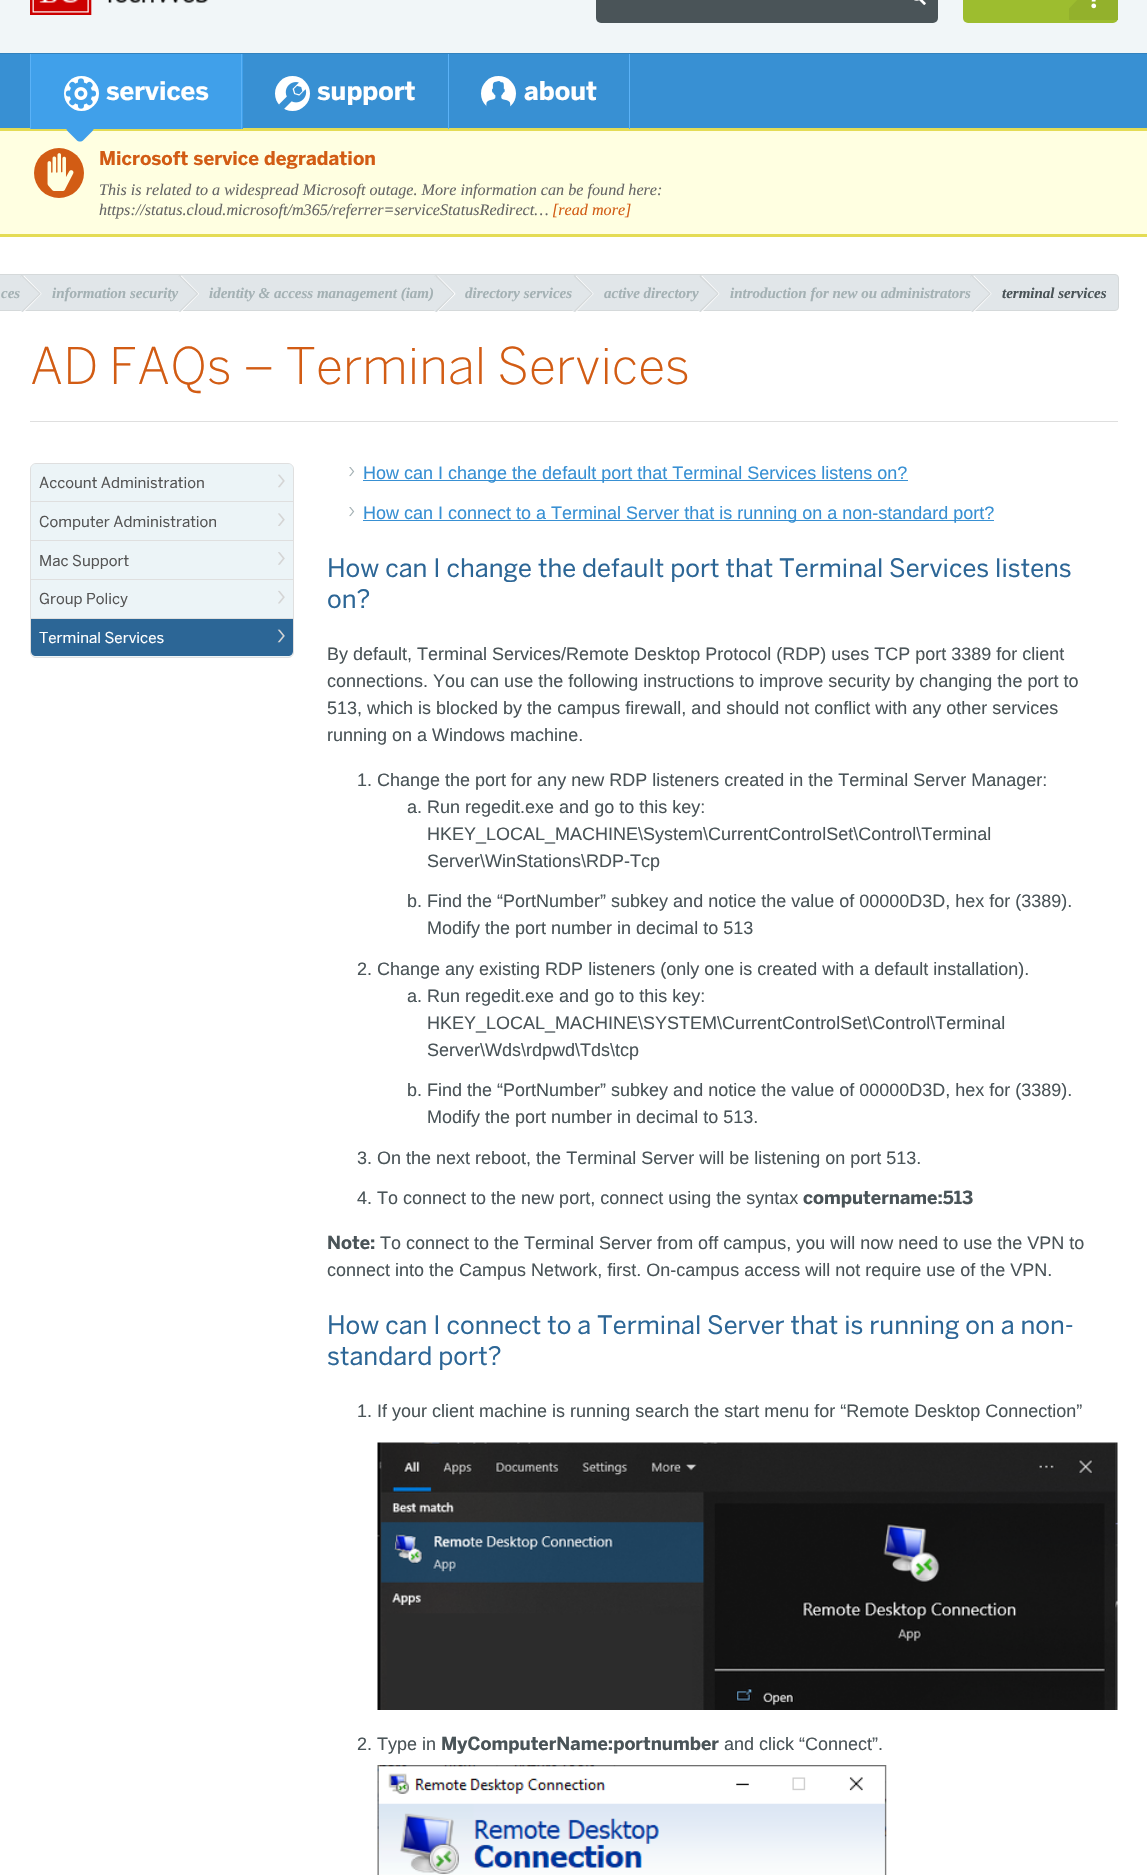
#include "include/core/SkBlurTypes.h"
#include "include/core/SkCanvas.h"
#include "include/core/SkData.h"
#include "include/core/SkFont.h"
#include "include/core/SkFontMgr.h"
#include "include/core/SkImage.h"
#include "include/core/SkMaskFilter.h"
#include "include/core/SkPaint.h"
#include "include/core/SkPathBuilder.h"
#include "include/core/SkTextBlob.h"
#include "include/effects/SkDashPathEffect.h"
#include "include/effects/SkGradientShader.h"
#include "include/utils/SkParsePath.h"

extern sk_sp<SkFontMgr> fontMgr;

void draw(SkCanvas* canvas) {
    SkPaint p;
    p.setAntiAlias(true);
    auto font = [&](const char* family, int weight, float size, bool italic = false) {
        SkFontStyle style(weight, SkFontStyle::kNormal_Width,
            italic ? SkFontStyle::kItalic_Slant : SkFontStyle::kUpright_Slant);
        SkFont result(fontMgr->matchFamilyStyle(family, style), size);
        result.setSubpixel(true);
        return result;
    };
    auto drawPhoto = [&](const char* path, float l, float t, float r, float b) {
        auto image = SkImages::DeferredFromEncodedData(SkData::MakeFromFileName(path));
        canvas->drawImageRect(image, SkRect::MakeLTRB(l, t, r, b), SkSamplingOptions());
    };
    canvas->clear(0xFFF1F6F8);
    drawPhoto("media/1.png", 30, 0, 208, 15);
    p.setColor(0xFF4A5458);
    canvas->drawRoundRect(SkRect::MakeLTRB(596, -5, 938, 23), 5, 5, p);
    drawPhoto("media/2.png", 914, 0, 926, 5);
    p.setColor(0xFF9DBD2F);
    canvas->drawRoundRect(SkRect::MakeLTRB(963, -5, 1118, 23), 5, 5, p);
    p.setColor(0xFF93B12C);
    canvas->drawRect(SkRect::MakeLTRB(1069, 0, 1118, 20), p);
    p.setColor(0xFF9DBD2F);
    canvas->drawPath(SkPathBuilder().moveTo(1069.5f, -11.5f).lineTo(1078, -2.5f).cubicTo(1078.5f, -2, 1078.5f, -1.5f, 1078, -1).lineTo(1069.5f, 8).cubicTo(1069, 8.5f, 1068, 8.5f, 1067.5f, 8).lineTo(1058.5f, -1).cubicTo(1058, -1.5f, 1058, -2, 1058.5f, -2.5f).lineTo(1067.5f, -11.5f).cubicTo(1068, -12, 1069, -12, 1069.5f, -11.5f).close().detach(), p);
    drawPhoto("media/3.png", 1091, 0, 1097, 9);
    {
        const struct { float l, t, r, b; SkColor color; } items[] = {
            {0, 54, 1147, 128, 0xFF3890D3},
            {0, 53, 1147, 54, 0xFF3282BE},
            {0, 128, 1147, 131, 0xFFE4DC55},
            {31, 54, 243, 129, 0xFF40A0EA},
            {30, 54, 31, 129, 0xFF5BB2F7},
            {241, 54, 242, 129, 0xFF5BB2F7},
        };
        for (auto [l, t, r, b, color] : items) {
            p.setColor(color);
            canvas->drawRect(SkRect::MakeLTRB(l, t, r, b), p);
        }
    }
    p.setColor(0xFFFFFFFF);
    canvas->drawCircle(81.5f, 93.5f, 17.5f, p);
    drawPhoto("media/4.png", 65, 78, 96, 109);
    auto font1 = font("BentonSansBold", 700, 25.5f);
    canvas->drawString("services", 106, 100, font1, p);
    p.setColor(0xFFFFFFE1);
    canvas->drawRect(SkRect::MakeLTRB(0, 131, 1147, 234), p);
    p.setColor(0xFF40A0EA);
    canvas->drawPath(SkPathBuilder().moveTo(83.5f, 115).lineTo(92.5f, 124).cubicTo(94.5f, 126, 94.5f, 129, 92.5f, 131).lineTo(83.5f, 140).cubicTo(81.5f, 142, 78.5f, 142, 76.5f, 140).lineTo(67.5f, 131).cubicTo(65.5f, 129, 65.5f, 126, 67.5f, 124).lineTo(76.5f, 115).cubicTo(78.5f, 113, 81.5f, 113, 83.5f, 115).close().detach(), p);
    p.setColor(0xFF5BB2F7);
    canvas->drawRect(SkRect::MakeLTRB(448, 54, 449, 129), p);
    p.setColor(0xFFFFFFFF);
    canvas->drawCircle(292.5f, 93.5f, 17.5f, p);
    drawPhoto("media/5.png", 279, 82, 307, 109);
    canvas->drawString("support", 317, 100, font1, p);
    p.setColor(0xFF5BB2F7);
    canvas->drawRect(SkRect::MakeLTRB(629, 54, 630, 129), p);
    p.setColor(0xFFFFFFFF);
    canvas->drawCircle(498.5f, 93.5f, 17.5f, p);
    drawPhoto("media/6.png", 486, 81, 511, 111);
    canvas->drawString("about", 524, 100, font1, p);
    canvas->drawRect(SkRect::MakeLTRB(0, 237, 1147, 1875), p);
    p.setColor(0xFFE4DC55);
    canvas->drawRect(SkRect::MakeLTRB(0, 234, 1147, 237), p);
    p.setColor(0xFFD25C14);
    canvas->drawCircle(59, 173, 25, p);
    drawPhoto("media/7.png", 47, 153, 74, 191);
    auto font2 = font("BentonSansBold", 700, 18.75f);
    canvas->drawString("Microsoft service degradation", 99, 165, font2, p);
    auto font3 = font("Liberation Serif", 400, 16.15f, true);
    p.setColor(0xFF666666);
    canvas->drawString("This is related to a widespread Microsoft outage. More information can be found here:", 99, 195, font3, p);
    canvas->drawString("https://status.cloud.microsoft/m365/referrer=serviceStatusRedirect…", 99, 215, font3, p);
    p.setColor(0xFFD25C14);
    canvas->drawString("[read more]", 552, 215, font3, p);
    p.setColor(0xFFE1E6E9);
    canvas->drawRect(SkRect::MakeLTRB(0, 275, 22, 310), p);
    p.setStyle(SkPaint::kStroke_Style);
    p.setStrokeWidth(1);
    p.setColor(0xFFD5D9DA);
    canvas->drawRect(SkRect::MakeLTRB(-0.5f, 274.5f, 32.5f, 310.5f), p);
    p.setStyle(SkPaint::kFill_Style);
    p.setColor(0xFFE1E6E9);
    canvas->drawRoundRect(SkRect::MakeLTRB(20.5f, 274.5f, 189.5f, 310.5f), 3.5f, 3.5f, p);
    p.setStyle(SkPaint::kStroke_Style);
    p.setColor(0xFFD5D9DA);
    canvas->drawRoundRect(SkRect::MakeLTRB(20.5f, 274.5f, 189.5f, 310.5f), 3.5f, 3.5f, p);
    p.setStyle(SkPaint::kFill_Style);
    p.setColor(0xFFFFFFFF);
    canvas->drawPath(SkPathBuilder().moveTo(24, 275.5f).lineTo(41.5f, 293.5f).lineTo(41, 294).lineTo(23, 276.5f).close().detach(), p);
    canvas->drawPath(SkPathBuilder().moveTo(41, 293.5f).lineTo(41.5f, 294).lineTo(24, 312).lineTo(23, 311).close().detach(), p);
    p.setColor(0xFFE1E6E9);
    canvas->drawPath(SkPathBuilder().moveTo(23, 276).lineTo(40, 293).cubicTo(40.5f, 293.5f, 40.5f, 294, 40, 294.5f).lineTo(23, 311.5f).cubicTo(22.5f, 312, 22, 312, 21.5f, 311.5f).lineTo(4.5f, 294.5f).cubicTo(4, 294, 4, 293.5f, 4.5f, 293).lineTo(21.5f, 276).cubicTo(22, 275.5f, 22.5f, 275.5f, 23, 276).close().detach(), p);
    p.setColor(0xFFD5D9DA);
    canvas->drawPath(SkPathBuilder().moveTo(22.5f, 275.5f).lineTo(40.5f, 293.5f).lineTo(39.5f, 294).lineTo(22, 276.5f).close().detach(), p);
    canvas->drawPath(SkPathBuilder().moveTo(39.5f, 293.5f).lineTo(40.5f, 294).lineTo(22.5f, 312).lineTo(22, 311).close().detach(), p);
    auto font4 = font("Liberation Serif", 700, 15, true);
    p.setColor(0xFFA4B1B4);
    canvas->drawString("ces", 1, 298, font4, p);
    p.setColor(0xFFE1E6E9);
    canvas->drawRoundRect(SkRect::MakeLTRB(178.5f, 274.5f, 445.5f, 310.5f), 3.5f, 3.5f, p);
    p.setStyle(SkPaint::kStroke_Style);
    p.setColor(0xFFD5D9DA);
    canvas->drawRoundRect(SkRect::MakeLTRB(178.5f, 274.5f, 445.5f, 310.5f), 3.5f, 3.5f, p);
    p.setStyle(SkPaint::kFill_Style);
    p.setColor(0xFFFFFFFF);
    canvas->drawPath(SkPathBuilder().moveTo(181.5f, 275.5f).lineTo(199, 293.5f).lineTo(198.5f, 294).lineTo(180.5f, 276.5f).close().detach(), p);
    canvas->drawPath(SkPathBuilder().moveTo(198.5f, 293.5f).lineTo(199, 294).lineTo(181.5f, 312).lineTo(180.5f, 311).close().detach(), p);
    p.setColor(0xFFE1E6E9);
    canvas->drawPath(SkPathBuilder().moveTo(180.5f, 276).lineTo(197.5f, 293).cubicTo(198, 293.5f, 198, 294, 197.5f, 294.5f).lineTo(180.5f, 311.5f).cubicTo(180, 312, 179.5f, 312, 179, 311.5f).lineTo(162, 294.5f).cubicTo(161.5f, 294, 161.5f, 293.5f, 162, 293).lineTo(179, 276).cubicTo(179.5f, 275.5f, 180, 275.5f, 180.5f, 276).close().detach(), p);
    p.setColor(0xFFD5D9DA);
    canvas->drawPath(SkPathBuilder().moveTo(180, 275.5f).lineTo(198, 293.5f).lineTo(197, 294).lineTo(179.5f, 276.5f).close().detach(), p);
    canvas->drawPath(SkPathBuilder().moveTo(197, 293.5f).lineTo(198, 294).lineTo(180, 312).lineTo(179.5f, 311).close().detach(), p);
    p.setColor(0xFFA4B1B4);
    canvas->drawString("information security", 52, 298, font4, p);
    p.setColor(0xFFE1E6E9);
    canvas->drawRoundRect(SkRect::MakeLTRB(434.5f, 274.5f, 584.5f, 310.5f), 3.5f, 3.5f, p);
    p.setStyle(SkPaint::kStroke_Style);
    p.setColor(0xFFD5D9DA);
    canvas->drawRoundRect(SkRect::MakeLTRB(434.5f, 274.5f, 584.5f, 310.5f), 3.5f, 3.5f, p);
    p.setStyle(SkPaint::kFill_Style);
    p.setColor(0xFFFFFFFF);
    canvas->drawPath(SkPathBuilder().moveTo(437.5f, 275.5f).lineTo(455.5f, 293.5f).lineTo(454.5f, 294).lineTo(437, 276.5f).close().detach(), p);
    canvas->drawPath(SkPathBuilder().moveTo(454.5f, 293.5f).lineTo(455.5f, 294).lineTo(437.5f, 312).lineTo(437, 311).close().detach(), p);
    p.setColor(0xFFE1E6E9);
    canvas->drawPath(SkPathBuilder().moveTo(437, 276).lineTo(453.5f, 293).cubicTo(454, 293.5f, 454, 294, 453.5f, 294.5f).lineTo(437, 311.5f).cubicTo(436.5f, 312, 435.5f, 312, 435, 311.5f).lineTo(418.5f, 294.5f).cubicTo(418, 294, 418, 293.5f, 418.5f, 293).lineTo(435, 276).cubicTo(435.5f, 275.5f, 436.5f, 275.5f, 437, 276).close().detach(), p);
    p.setColor(0xFFD5D9DA);
    canvas->drawPath(SkPathBuilder().moveTo(436.5f, 275.5f).lineTo(454, 293.5f).lineTo(453.5f, 294).lineTo(435.5f, 276.5f).close().detach(), p);
    canvas->drawPath(SkPathBuilder().moveTo(453.5f, 293.5f).lineTo(454, 294).lineTo(436.5f, 312).lineTo(435.5f, 311).close().detach(), p);
    p.setColor(0xFFA4B1B4);
    canvas->drawString("identity & access management (iam)", 209, 298, font4, p);
    p.setColor(0xFFE1E6E9);
    canvas->drawRoundRect(SkRect::MakeLTRB(573.5f, 274.5f, 710.5f, 310.5f), 3.5f, 3.5f, p);
    p.setStyle(SkPaint::kStroke_Style);
    p.setColor(0xFFD5D9DA);
    canvas->drawRoundRect(SkRect::MakeLTRB(573.5f, 274.5f, 710.5f, 310.5f), 3.5f, 3.5f, p);
    p.setStyle(SkPaint::kFill_Style);
    p.setColor(0xFFFFFFFF);
    canvas->drawPath(SkPathBuilder().moveTo(576, 275.5f).lineTo(593.5f, 293.5f).lineTo(593, 294).lineTo(575, 276.5f).close().detach(), p);
    canvas->drawPath(SkPathBuilder().moveTo(593, 293.5f).lineTo(593.5f, 294).lineTo(576, 312).lineTo(575, 311).close().detach(), p);
    p.setColor(0xFFE1E6E9);
    canvas->drawPath(SkPathBuilder().moveTo(575, 276).lineTo(592, 293).cubicTo(592.5f, 293.5f, 592.5f, 294, 592, 294.5f).lineTo(575, 311.5f).cubicTo(574.5f, 312, 574, 312, 573.5f, 311.5f).lineTo(556.5f, 294.5f).cubicTo(556, 294, 556, 293.5f, 556.5f, 293).lineTo(573.5f, 276).cubicTo(574, 275.5f, 574.5f, 275.5f, 575, 276).close().detach(), p);
    p.setColor(0xFFD5D9DA);
    canvas->drawPath(SkPathBuilder().moveTo(575, 275.5f).lineTo(592.5f, 293.5f).lineTo(591.5f, 294).lineTo(574, 276.5f).close().detach(), p);
    canvas->drawPath(SkPathBuilder().moveTo(591.5f, 293.5f).lineTo(592.5f, 294).lineTo(575, 312).lineTo(574, 311).close().detach(), p);
    p.setColor(0xFFA4B1B4);
    canvas->drawString("directory services", 465, 298, font4, p);
    p.setColor(0xFFE1E6E9);
    canvas->drawRoundRect(SkRect::MakeLTRB(699.5f, 274.5f, 982.5f, 310.5f), 3.5f, 3.5f, p);
    p.setStyle(SkPaint::kStroke_Style);
    p.setColor(0xFFD5D9DA);
    canvas->drawRoundRect(SkRect::MakeLTRB(699.5f, 274.5f, 982.5f, 310.5f), 3.5f, 3.5f, p);
    p.setStyle(SkPaint::kFill_Style);
    p.setColor(0xFFFFFFFF);
    canvas->drawPath(SkPathBuilder().moveTo(702, 275.5f).lineTo(719.5f, 293.5f).lineTo(718.5f, 294).lineTo(701, 276.5f).close().detach(), p);
    canvas->drawPath(SkPathBuilder().moveTo(718.5f, 293.5f).lineTo(719.5f, 294).lineTo(702, 312).lineTo(701, 311).close().detach(), p);
    p.setColor(0xFFE1E6E9);
    canvas->drawPath(SkPathBuilder().moveTo(701, 276).lineTo(718, 293).cubicTo(718.5f, 293.5f, 718.5f, 294, 718, 294.5f).lineTo(701, 311.5f).cubicTo(700.5f, 312, 699.5f, 312, 699.5f, 311.5f).lineTo(682.5f, 294.5f).cubicTo(682, 294, 682, 293.5f, 682.5f, 293).lineTo(699.5f, 276).cubicTo(699.5f, 275.5f, 700.5f, 275.5f, 701, 276).close().detach(), p);
    p.setColor(0xFFD5D9DA);
    canvas->drawPath(SkPathBuilder().moveTo(700.5f, 275.5f).lineTo(718.5f, 293.5f).lineTo(717.5f, 294).lineTo(699.5f, 276.5f).close().detach(), p);
    canvas->drawPath(SkPathBuilder().moveTo(717.5f, 293.5f).lineTo(718.5f, 294).lineTo(700.5f, 312).lineTo(699.5f, 311).close().detach(), p);
    p.setColor(0xFFA4B1B4);
    canvas->drawString("active directory", 604, 298, font4, p);
    p.setColor(0xFFE1E6E9);
    canvas->drawRoundRect(SkRect::MakeLTRB(970.5f, 274.5f, 1118.5f, 310.5f), 3.5f, 3.5f, p);
    p.setStyle(SkPaint::kStroke_Style);
    p.setColor(0xFFD5D9DA);
    canvas->drawRoundRect(SkRect::MakeLTRB(970.5f, 274.5f, 1118.5f, 310.5f), 3.5f, 3.5f, p);
    p.setStyle(SkPaint::kFill_Style);
    p.setColor(0xFFFFFFFF);
    canvas->drawPath(SkPathBuilder().moveTo(974, 275.5f).lineTo(991.5f, 293.5f).lineTo(991, 294).lineTo(973, 276.5f).close().detach(), p);
    canvas->drawPath(SkPathBuilder().moveTo(991, 293.5f).lineTo(991.5f, 294).lineTo(974, 312).lineTo(973, 311).close().detach(), p);
    p.setColor(0xFFE1E6E9);
    canvas->drawPath(SkPathBuilder().moveTo(973, 276).lineTo(990, 293).cubicTo(990.5f, 293.5f, 990.5f, 294, 990, 294.5f).lineTo(973, 311.5f).cubicTo(972.5f, 312, 972, 312, 971.5f, 311.5f).lineTo(954.5f, 294.5f).cubicTo(954, 294, 954, 293.5f, 954.5f, 293).lineTo(971.5f, 276).cubicTo(972, 275.5f, 972.5f, 275.5f, 973, 276).close().detach(), p);
    p.setColor(0xFFD5D9DA);
    canvas->drawPath(SkPathBuilder().moveTo(972.5f, 275.5f).lineTo(990.5f, 293.5f).lineTo(989.5f, 294).lineTo(972, 276.5f).close().detach(), p);
    canvas->drawPath(SkPathBuilder().moveTo(989.5f, 293.5f).lineTo(990.5f, 294).lineTo(972.5f, 312).lineTo(972, 311).close().detach(), p);
    p.setColor(0xFFA4B1B4);
    canvas->drawString("introduction for new ou administrators", 730, 298, font4, p);
    p.setColor(0xFF4A5458);
    canvas->drawString("terminal services", 1002, 298, font4, p);
    auto font5 = font("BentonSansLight", 300, 50);
    p.setColor(0xFFD25C14);
    canvas->drawString("AD FAQs – Terminal Services", 30, 384, font5, p);
    p.setColor(0xFFDFDFDF);
    canvas->drawRect(SkRect::MakeLTRB(30, 421, 1118, 422), p);
    p.setColor(0xFFECF4F7);
    canvas->drawRoundRect(SkRect::MakeLTRB(30.5f, 463.5f, 293.5f, 657.5f), 5.5f, 5.5f, p);
    p.setStyle(SkPaint::kStroke_Style);
    p.setColor(0xFFDFDFDF);
    canvas->drawRoundRect(SkRect::MakeLTRB(30.5f, 463.5f, 293.5f, 657.5f), 5.5f, 5.5f, p);
    p.setStyle(SkPaint::kFill_Style);
    p.setColor(0xFFECF4F7);
    canvas->drawRoundRect(SkRect::MakeLTRB(31, 464, 293, 656), 5, 5, p);
    auto font6 = font("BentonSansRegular", 400, 15);
    p.setColor(0xFF555555);
    canvas->drawString("Account Administration", 39, 488, font6, p);
    drawPhoto("media/8.png", 278, 474, 285, 488);
    p.setColor(0xFFDFDFDF);
    canvas->drawRect(SkRect::MakeLTRB(31, 501, 293, 502), p);
    p.setColor(0xFF555555);
    canvas->drawString("Computer Administration", 39, 527, font6, p);
    drawPhoto("media/9.png", 278, 513, 285, 526);
    p.setColor(0xFFDFDFDF);
    canvas->drawRect(SkRect::MakeLTRB(31, 540, 293, 541), p);
    p.setColor(0xFF555555);
    canvas->drawString("Mac Support", 39, 566, font6, p);
    drawPhoto("media/10.png", 278, 552, 285, 565);
    p.setColor(0xFFDFDFDF);
    canvas->drawRect(SkRect::MakeLTRB(31, 579, 293, 580), p);
    p.setColor(0xFF555555);
    canvas->drawString("Group Policy", 39, 604, font6, p);
    drawPhoto("media/11.png", 278, 590, 285, 604);
    p.setColor(0xFFDFDFDF);
    canvas->drawRect(SkRect::MakeLTRB(31, 618, 293, 619), p);
    p.setColor(0xFF2C6696);
    canvas->drawPath(SkPathBuilder().moveTo(31, 619).lineTo(293, 619).lineTo(293, 651).cubicTo(293, 654, 291, 656, 288, 656).lineTo(36, 656).cubicTo(33, 656, 31, 654, 31, 651).close().detach(), p);
    p.setColor(0xFFFFFFFF);
    canvas->drawString("Terminal Services", 39, 643, font6, p);
    drawPhoto("media/12.png", 277, 629, 285, 643);
    drawPhoto("media/13.png", 349, 467, 355, 477);
    p.setColor(0xFF3890D3);
    canvas->drawRect(SkRect::MakeLTRB(363, 480, 908, 481), p);
    auto font7 = font("Liberation Sans", 400, 18);
    canvas->drawString("How can I change the default port that Terminal Services listens on?", 363, 479, font7, p);
    drawPhoto("media/13.png", 349, 507, 355, 517);
    canvas->drawRect(SkRect::MakeLTRB(363, 520, 994, 521), p);
    canvas->drawString("How can I connect to a Terminal Server that is running on a non-standard port?", 363, 519, font7, p);
    auto font8 = font("BentonSansRegular", 400, 25.2f);
    p.setColor(0xFF2C6696);
    canvas->drawString("How can I change the default port that Terminal Services listens", 327, 577, font8, p);
    canvas->drawString("on?", 327, 608, font8, p);
    p.setColor(0xFF4A5458);
    {
        const struct { const char* s; float x, y; } items[] = {
            {"By default, Terminal Services/Remote Desktop Protocol (RDP) uses TCP port 3389 for client", 327, 660},
            {"connections. You can use the following instructions to improve security by changing the port to", 327, 687},
            {"513, which is blocked by the campus firewall, and should not conflict with any other services", 327, 714},
            {"running on a Windows machine.", 327, 741},
            {"1. Change the port for any new RDP listeners created in the Terminal Server Manager:", 357, 786},
            {"a. Run regedit.exe and go to this key:", 407, 813},
            {"HKEY_LOCAL_MACHINE\\System\\CurrentControlSet\\Control\\Terminal", 427, 840},
            {"Server\\WinStations\\RDP-Tcp", 427, 867},
            {"b. Find the “PortNumber” subkey and notice the value of 00000D3D, hex for (3389).", 407, 907},
            {"Modify the port number in decimal to 513", 427, 934},
            {"2. Change any existing RDP listeners (only one is created with a default installation).", 357, 975},
            {"a. Run regedit.exe and go to this key:", 407, 1002},
            {"HKEY_LOCAL_MACHINE\\SYSTEM\\CurrentControlSet\\Control\\Terminal", 427, 1029},
            {"Server\\Wds\\rdpwd\\Tds\\tcp", 427, 1056},
            {"b. Find the “PortNumber” subkey and notice the value of 00000D3D, hex for (3389).", 407, 1096},
            {"Modify the port number in decimal to 513.", 427, 1123},
            {"3. On the next reboot, the Terminal Server will be listening on port 513.", 357, 1164},
            {"4. To connect to the new port, connect using the syntax", 357, 1204},
        };
        for (auto [s, x, y] : items) {
            canvas->drawString(s, x, y, font7, p);
        }
    }
    auto font9 = font("BentonSansBold", 700, 18);
    canvas->drawString("computername:513", 803, 1204, font9, p);
    canvas->drawString("Note:", 327, 1249, font9, p);
    canvas->drawString("To connect to the Terminal Server from off campus, you will now need to use the VPN to", 380, 1249, font7, p);
    canvas->drawString("connect into the Campus Network, first. On-campus access will not require use of the VPN.", 327, 1276, font7, p);
    p.setColor(0xFF2C6696);
    canvas->drawString("How can I connect to a Terminal Server that is running on a non-", 327, 1334, font8, p);
    canvas->drawString("standard port?", 327, 1365, font8, p);
    p.setColor(0xFF4A5458);
    canvas->drawString("1. If your client machine is running search the start menu for “Remote Desktop Connection”", 357, 1417, font7, p);
    drawPhoto("media/14.png", 377, 1442, 1118, 1710);
    canvas->drawString("2. Type in", 357, 1750, font7, p);
    canvas->drawString("MyComputerName:portnumber", 441, 1750, font9, p);
    canvas->drawString("and click “Connect”.", 724, 1750, font7, p);
    drawPhoto("media/15.png", 377, 1765, 887, 1875);
}
